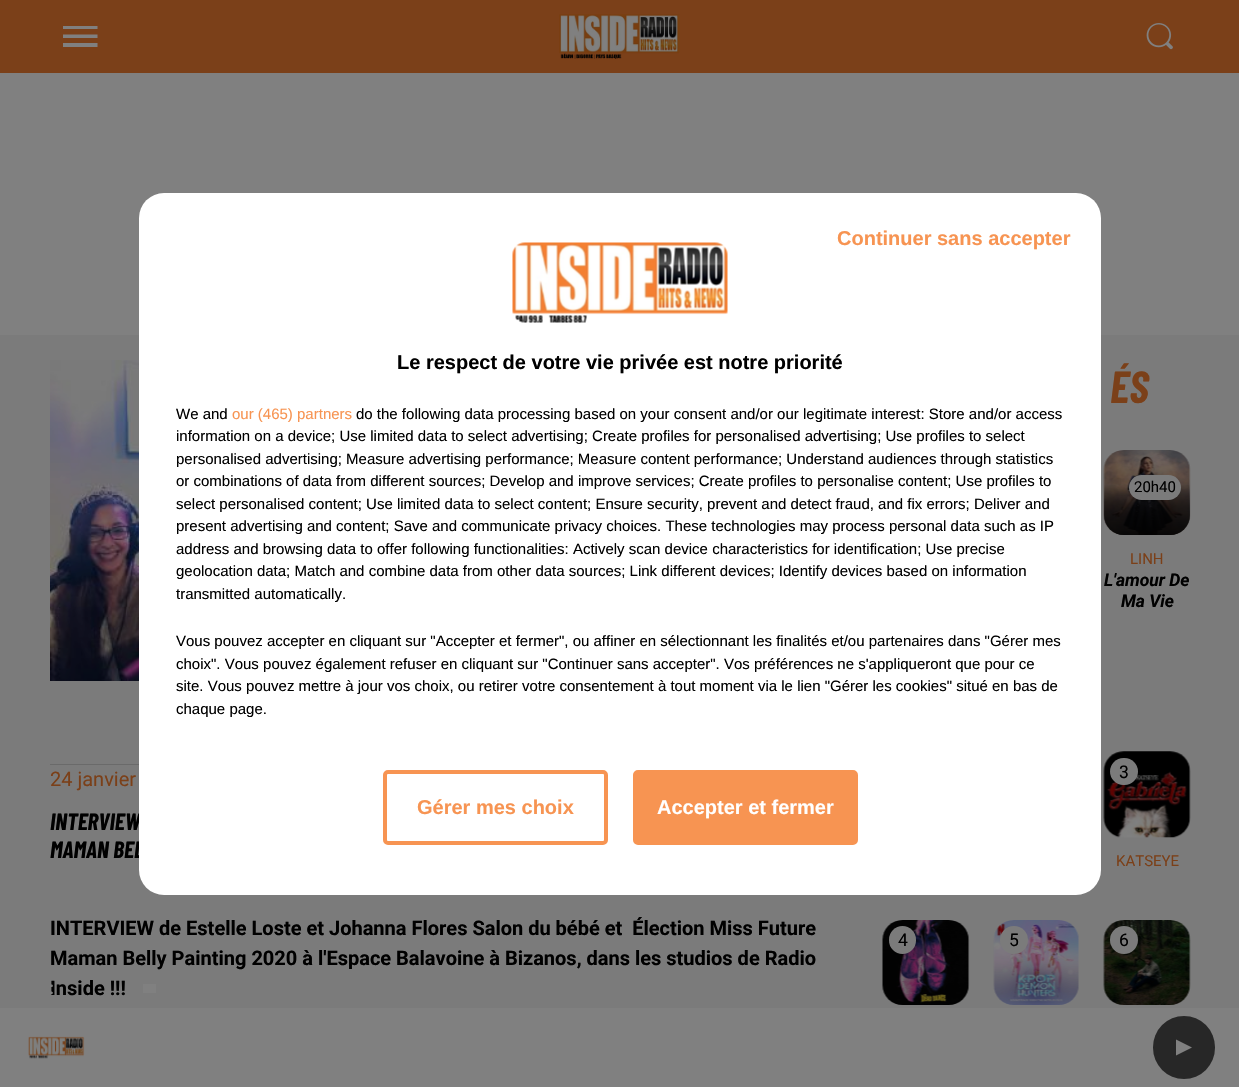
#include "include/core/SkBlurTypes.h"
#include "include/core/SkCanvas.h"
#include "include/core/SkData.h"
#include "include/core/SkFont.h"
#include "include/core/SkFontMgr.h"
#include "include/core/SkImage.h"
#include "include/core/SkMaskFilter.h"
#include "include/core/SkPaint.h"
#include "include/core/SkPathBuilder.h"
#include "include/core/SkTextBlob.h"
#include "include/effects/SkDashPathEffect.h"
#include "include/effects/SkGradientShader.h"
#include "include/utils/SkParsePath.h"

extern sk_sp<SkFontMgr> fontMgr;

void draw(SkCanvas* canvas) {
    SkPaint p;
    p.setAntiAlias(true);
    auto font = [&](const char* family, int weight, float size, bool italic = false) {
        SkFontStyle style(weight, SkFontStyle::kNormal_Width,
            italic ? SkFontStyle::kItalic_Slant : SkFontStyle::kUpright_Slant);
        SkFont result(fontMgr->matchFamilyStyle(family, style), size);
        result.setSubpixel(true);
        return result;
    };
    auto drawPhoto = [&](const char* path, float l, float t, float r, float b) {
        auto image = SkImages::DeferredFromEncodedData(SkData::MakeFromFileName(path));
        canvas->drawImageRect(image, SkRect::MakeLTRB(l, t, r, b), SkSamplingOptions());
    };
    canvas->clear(0xFF7B7B7B);
    p.setColor(0xFF808080);
    canvas->drawRect(SkRect::MakeLTRB(0, 73, 1239, 335), p);
    auto font1 = font("Barlow Condensed", 700, 23.5f, true);
    p.setColor(0xFF000000);
    canvas->drawString("INTERVIEW", 50, 830, font1, p);
    canvas->drawString("MAMAN BEL", 50, 858, font1, p);
    p.setColor(0xFFFFFFFF);
    canvas->drawRoundRect(SkRect::MakeLTRB(139, 193, 1101, 895), 25, 25, p);
    auto font2 = font("Liberation Sans", 700, 20);
    p.setColor(0xFFF79452);
    canvas->drawString("Continuer sans accepter", 837, 245, font2, p);
    p.setStyle(SkPaint::kStroke_Style);
    p.setStrokeWidth(4);
    canvas->drawRoundRect(SkRect::MakeLTRB(385, 772, 606, 843), 3, 3, p);
    p.setStyle(SkPaint::kFill_Style);
    canvas->drawString("Gérer mes choix", 417, 814, font2, p);
    canvas->drawRoundRect(SkRect::MakeLTRB(635, 772, 856, 843), 3, 3, p);
    p.setStyle(SkPaint::kStroke_Style);
    canvas->drawRoundRect(SkRect::MakeLTRB(635, 772, 856, 843), 3, 3, p);
    p.setStyle(SkPaint::kFill_Style);
    p.setColor(0xFFFFFFFF);
    canvas->drawString("Accepter et fermer", 657, 814, font2, p);
    drawPhoto("media/1.png", 512, 242, 728, 323);
    p.setColor(0xFF000000);
    canvas->drawString("Le respect de votre vie privée est notre priorité", 397, 369, font2, p);
    auto font3 = font("Liberation Sans", 400, 15);
    canvas->drawString("We and", 176, 419, font3, p);
    p.setColor(0xFFF79452);
    canvas->drawString("our (465) partners", 232, 419, font3, p);
    p.setColor(0xFF000000);
    {
        const struct { const char* s; float x, y; } items[] = {
            {"do the following data processing based on your consent and/or our legitimate interest: Store and/or access", 356, 419},
            {"information on a device; Use limited data to select advertising; Create profiles for personalised advertising; Use profiles to select", 176, 441},
            {"personalised advertising; Measure advertising performance; Measure content performance; Understand audiences through statistics", 176, 464},
            {"or combinations of data from different sources; Develop and improve services; Create profiles to personalise content; Use profiles to", 176, 486},
            {"select personalised content; Use limited data to select content; Ensure security, prevent and detect fraud, and fix errors; Deliver and", 176, 509},
            {"present advertising and content; Save and communicate privacy choices. These technologies may process personal data such as IP", 176, 531},
            {"address and browsing data to offer following functionalities: Actively scan device characteristics for identification; Use precise", 176, 554},
            {"geolocation data; Match and combine data from other data sources; Link different devices; Identify devices based on information", 176, 576},
            {"transmitted automatically.", 176, 599},
            {"Vous pouvez accepter en cliquant sur \"Accepter et fermer\", ou affiner en sélectionnant les finalités et/ou partenaires dans \"Gérer mes", 176, 646},
            {"choix\". Vous pouvez également refuser en cliquant sur \"Continuer sans accepter\". Vos préférences ne s'appliqueront que pour ce", 176, 669},
            {"site. Vous pouvez mettre à jour vos choix, ou retirer votre consentement à tout moment via le lien \"Gérer les cookies\" situé en bas de", 176, 691},
            {"chaque page.", 176, 714},
        };
        for (auto [s, x, y] : items) {
            canvas->drawString(s, x, y, font3, p);
        }
    }
    p.setColor(0xFF6A6A6A);
    canvas->drawRect(SkRect::MakeLTRB(50, 764, 139, 765), p);
    drawPhoto("media/2.png", 50, 360, 139, 681);
    auto font4 = font("Roboto", 400, 20);
    p.setColor(0xFF7B4019);
    canvas->drawString("24 janvier", 50, 786, font4, p);
    auto font5 = font("Roboto", 700, 20);
    p.setColor(0xFF000000);
    {
        const struct { const char* s; float x, y; } items[] = {
            {"INTERVIEW de Estelle Loste et Johanna Flores Salon du bébé et  Élection Miss Future", 50, 935},
            {"Maman Belly Painting 2020 à l'Espace Balavoine à Bizanos, dans les studios de Radio", 50, 965},
            {"Inside !!!", 50, 995},
        };
        for (auto [s, x, y] : items) {
            canvas->drawString(s, x, y, font5, p);
        }
    }
    auto font6 = font("Barlow Condensed", 700, 45, true);
    p.setColor(0xFF7B4019);
    canvas->drawString("ÉS", 1110, 403, font6, p);
    drawPhoto("media/3.png", 1103, 450, 1191, 535);
    {
        const SkColor colors[] = {0x00000000, 0x00000000, 0x57000000, 0xA6000000};
        const float stops[] = {0, 0.4f, 0.65f, 1};
        const SkPoint ends[] = {{1147, 450}, {1147, 535}};
        p.setShader(SkGradientShader::MakeLinear(ends, colors, stops, 4, SkTileMode::kClamp));
        p.setAlpha(255);
    }
    canvas->drawRoundRect(SkRect::MakeLTRB(1104, 450, 1190, 535), 20, 20, p);
    canvas->drawRoundRect(SkRect::MakeLTRB(1104, 450, 1190, 535), 20, 20, p);
    p.setShader(nullptr);
    p.setColor(0xFF7B7B7B);
    canvas->drawRoundRect(SkRect::MakeLTRB(1129, 475, 1181, 500), 12.5f, 12.5f, p);
    auto font7 = font("Roboto", 400, 15);
    p.setColor(0xFF000000);
    canvas->drawString("20h40", 1134, 492, font7, p);
    p.setColor(0xFF7B4019);
    canvas->drawString("LINH", 1130, 564, font7, p);
    auto font8 = font("Roboto", 700, 17.5f, true);
    p.setColor(0xFF000000);
    canvas->drawString("L'amour De", 1104, 586, font8, p);
    canvas->drawString("Ma Vie", 1121, 607, font8, p);
    drawPhoto("media/4.png", 1103, 751, 1191, 838);
    p.setColor(0xFF7B7B7B);
    canvas->drawRoundRect(SkRect::MakeLTRB(1110, 758, 1138, 785), 13.5f, 13.5f, p);
    auto font9 = font("Roboto", 400, 17.5f);
    p.setColor(0xFF000000);
    canvas->drawString("3", 1119, 778, font9, p);
    p.setColor(0xFF7B4019);
    canvas->drawString("KATSEYE", 1116, 866, font7, p);
    drawPhoto("media/5.png", 882, 920, 970, 1005);
    p.setColor(0xFF7B7B7B);
    canvas->drawRoundRect(SkRect::MakeLTRB(889, 926, 916, 954), 13.5f, 13.5f, p);
    p.setColor(0xFF000000);
    canvas->drawString("4", 898, 946, font9, p);
    drawPhoto("media/6.png", 993, 920, 1079, 1005);
    p.setColor(0xFF7B7B7B);
    canvas->drawCircle(1014, 940, 14, p);
    p.setColor(0xFF000000);
    canvas->drawString("5", 1009, 946, font9, p);
    drawPhoto("media/7.png", 1103, 920, 1191, 1005);
    p.setColor(0xFF7B7B7B);
    canvas->drawCircle(1124, 940, 14, p);
    p.setColor(0xFF000000);
    canvas->drawString("6", 1119, 946, font9, p);
    p.setColor(0xFF7B4019);
    canvas->drawRect(SkRect::MakeLTRB(0, 0, 1239, 73), p);
    canvas->save();
    canvas->clipRect(SkRect::MakeLTRB(63, 19, 98, 54));
    p.setColor(0xFF808080);
    canvas->drawPath(SkPathBuilder().moveTo(62.5f, 47).lineTo(62.5f, 43).lineTo(97.5f, 43).lineTo(97.5f, 47).close().moveTo(62.5f, 38).lineTo(62.5f, 34.5f).lineTo(97.5f, 34.5f).lineTo(97.5f, 38).close().moveTo(62.5f, 29).lineTo(62.5f, 26).lineTo(97.5f, 26).lineTo(97.5f, 29).close().detach(), p);
    canvas->restore();
    drawPhoto("media/8.png", 559, 14, 680, 59);
    drawPhoto("media/9.png", 1146, 23, 1173, 50);
    auto font10 = font("Roboto", 700, 17.5f);
    canvas->drawString(":", 49, 994, font10, p);
    canvas->drawRect(SkRect::MakeLTRB(143, 984, 156, 993), p);
    canvas->drawRect(SkRect::MakeLTRB(0, 1008, 1239, 1087), p);
    drawPhoto("media/10.png", 28, 1036, 85, 1059);
    p.setColor(0xFF272727);
    canvas->drawRoundRect(SkRect::MakeLTRB(1153, 1016, 1215, 1079), 31, 31, p);
    p.setColor(0xFF808080);
    canvas->drawPath(SkPathBuilder().moveTo(1192, 1047.5f).lineTo(1176, 1055.5f).lineTo(1176, 1039.5f).close().detach(), p);
}
